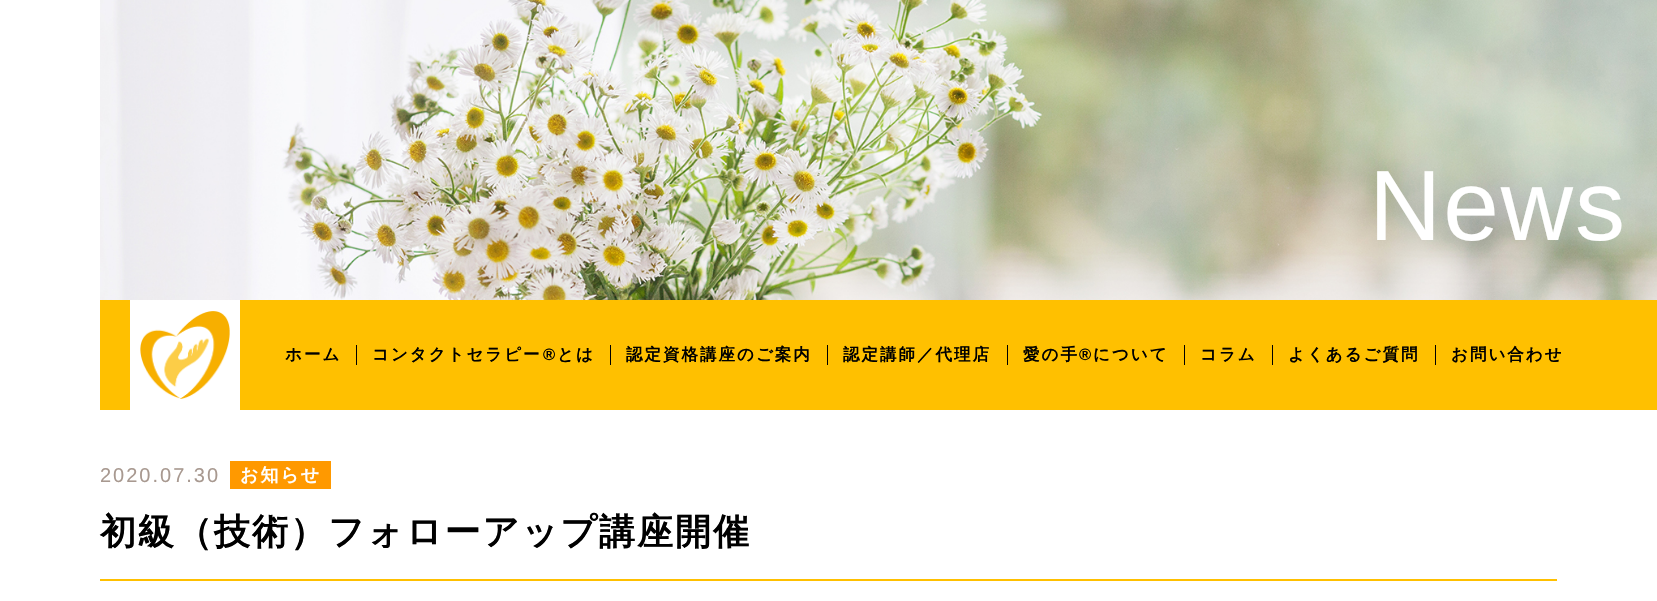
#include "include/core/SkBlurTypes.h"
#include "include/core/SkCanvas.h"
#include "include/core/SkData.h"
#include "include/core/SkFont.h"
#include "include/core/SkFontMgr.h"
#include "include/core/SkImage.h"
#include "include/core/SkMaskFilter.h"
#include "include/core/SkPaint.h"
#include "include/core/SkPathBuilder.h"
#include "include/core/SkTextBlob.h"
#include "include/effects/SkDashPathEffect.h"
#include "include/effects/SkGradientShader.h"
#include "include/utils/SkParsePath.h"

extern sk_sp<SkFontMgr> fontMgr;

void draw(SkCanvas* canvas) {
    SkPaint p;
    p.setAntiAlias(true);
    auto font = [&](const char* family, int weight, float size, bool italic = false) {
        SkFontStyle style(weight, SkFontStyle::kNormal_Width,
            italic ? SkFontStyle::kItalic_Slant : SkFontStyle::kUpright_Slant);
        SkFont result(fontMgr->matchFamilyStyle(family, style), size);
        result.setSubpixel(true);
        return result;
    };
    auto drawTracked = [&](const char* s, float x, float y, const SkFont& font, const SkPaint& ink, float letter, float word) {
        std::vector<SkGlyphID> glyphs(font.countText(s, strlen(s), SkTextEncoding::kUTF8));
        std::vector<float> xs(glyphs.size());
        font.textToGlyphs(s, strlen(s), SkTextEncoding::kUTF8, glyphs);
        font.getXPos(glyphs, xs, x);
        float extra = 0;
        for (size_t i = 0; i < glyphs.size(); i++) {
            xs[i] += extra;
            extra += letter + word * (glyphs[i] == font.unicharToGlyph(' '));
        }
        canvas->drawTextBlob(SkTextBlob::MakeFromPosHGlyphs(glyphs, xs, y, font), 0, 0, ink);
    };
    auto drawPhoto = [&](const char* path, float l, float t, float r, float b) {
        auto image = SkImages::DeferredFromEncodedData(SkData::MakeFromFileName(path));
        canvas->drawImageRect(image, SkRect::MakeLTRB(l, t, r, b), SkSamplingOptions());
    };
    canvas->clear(0xFFFFFFFF);
    drawPhoto("media/1.png", 100, 0, 1657, 300);
    auto font1 = font("Liberation Sans", 400, 100);
    p.setColor(0xFFFFFFFF);
    drawTracked("News", 1369, 240, font1, p, 2, 0);
    p.setColor(0xFFFFC000);
    canvas->drawRect(SkRect::MakeLTRB(100, 300, 1657, 410), p);
    p.setColor(0xFFFFFFFF);
    canvas->drawRect(SkRect::MakeLTRB(130, 300, 240, 410), p);
    drawPhoto("media/2.png", 140, 311, 230, 399);
    p.setColor(0xFF000000);
    canvas->drawRect(SkRect::MakeLTRB(356, 345, 357, 365), p);
    auto font2 = font("WenQuanYi Zen Hei", 700, 16.5f);
    drawTracked("ホーム", 285, 360, font2, p, 2, 0);
    canvas->drawRect(SkRect::MakeLTRB(610, 345, 611, 365), p);
    drawTracked("コンタクトセラピー", 372, 360, font2, p, 2, 0);
    auto font3 = font("Liberation Sans", 700, 16.5f);
    drawTracked("®", 543, 360, font3, p, 2, 0);
    drawTracked("とは", 557, 360, font2, p, 2, 0);
    canvas->drawRect(SkRect::MakeLTRB(827, 345, 828, 365), p);
    drawTracked("認定資格講座のご案内", 626, 360, font2, p, 2, 0);
    canvas->drawRect(SkRect::MakeLTRB(1007, 345, 1008, 365), p);
    drawTracked("認定講師／代理店", 843, 360, font2, p, 2, 0);
    canvas->drawRect(SkRect::MakeLTRB(1184, 345, 1185, 365), p);
    drawTracked("愛の手", 1023, 360, font2, p, 2, 0);
    drawTracked("®", 1079, 360, font3, p, 2, 0);
    drawTracked("について", 1093, 360, font2, p, 2, 0);
    canvas->drawRect(SkRect::MakeLTRB(1272, 345, 1273, 365), p);
    drawTracked("コラム", 1200, 360, font2, p, 2, 0);
    canvas->drawRect(SkRect::MakeLTRB(1435, 345, 1436, 365), p);
    drawTracked("よくあるご質問", 1288, 360, font2, p, 2, 0);
    drawTracked("お問い合わせ", 1451, 360, font2, p, 2, 0);
    p.setColor(0xFFFFC000);
    canvas->drawRect(SkRect::MakeLTRB(100, 579, 1557, 581), p);
    auto font4 = font("Liberation Sans", 400, 20);
    p.setColor(0xFFA89990);
    drawTracked("2020.07.30", 100, 482, font4, p, 2, 0);
    p.setColor(0xFFFF9900);
    canvas->drawRect(SkRect::MakeLTRB(230, 461, 331, 489), p);
    auto font5 = font("WenQuanYi Zen Hei", 700, 18);
    p.setColor(0xFFFFFFFF);
    drawTracked("お知らせ", 240, 481, font5, p, 2, 0);
    auto font6 = font("WenQuanYi Zen Hei", 700, 36);
    p.setColor(0xFF000000);
    drawTracked("初級（技術）フォローアップ講座開催", 100, 544, font6, p, 2, 0);
}
